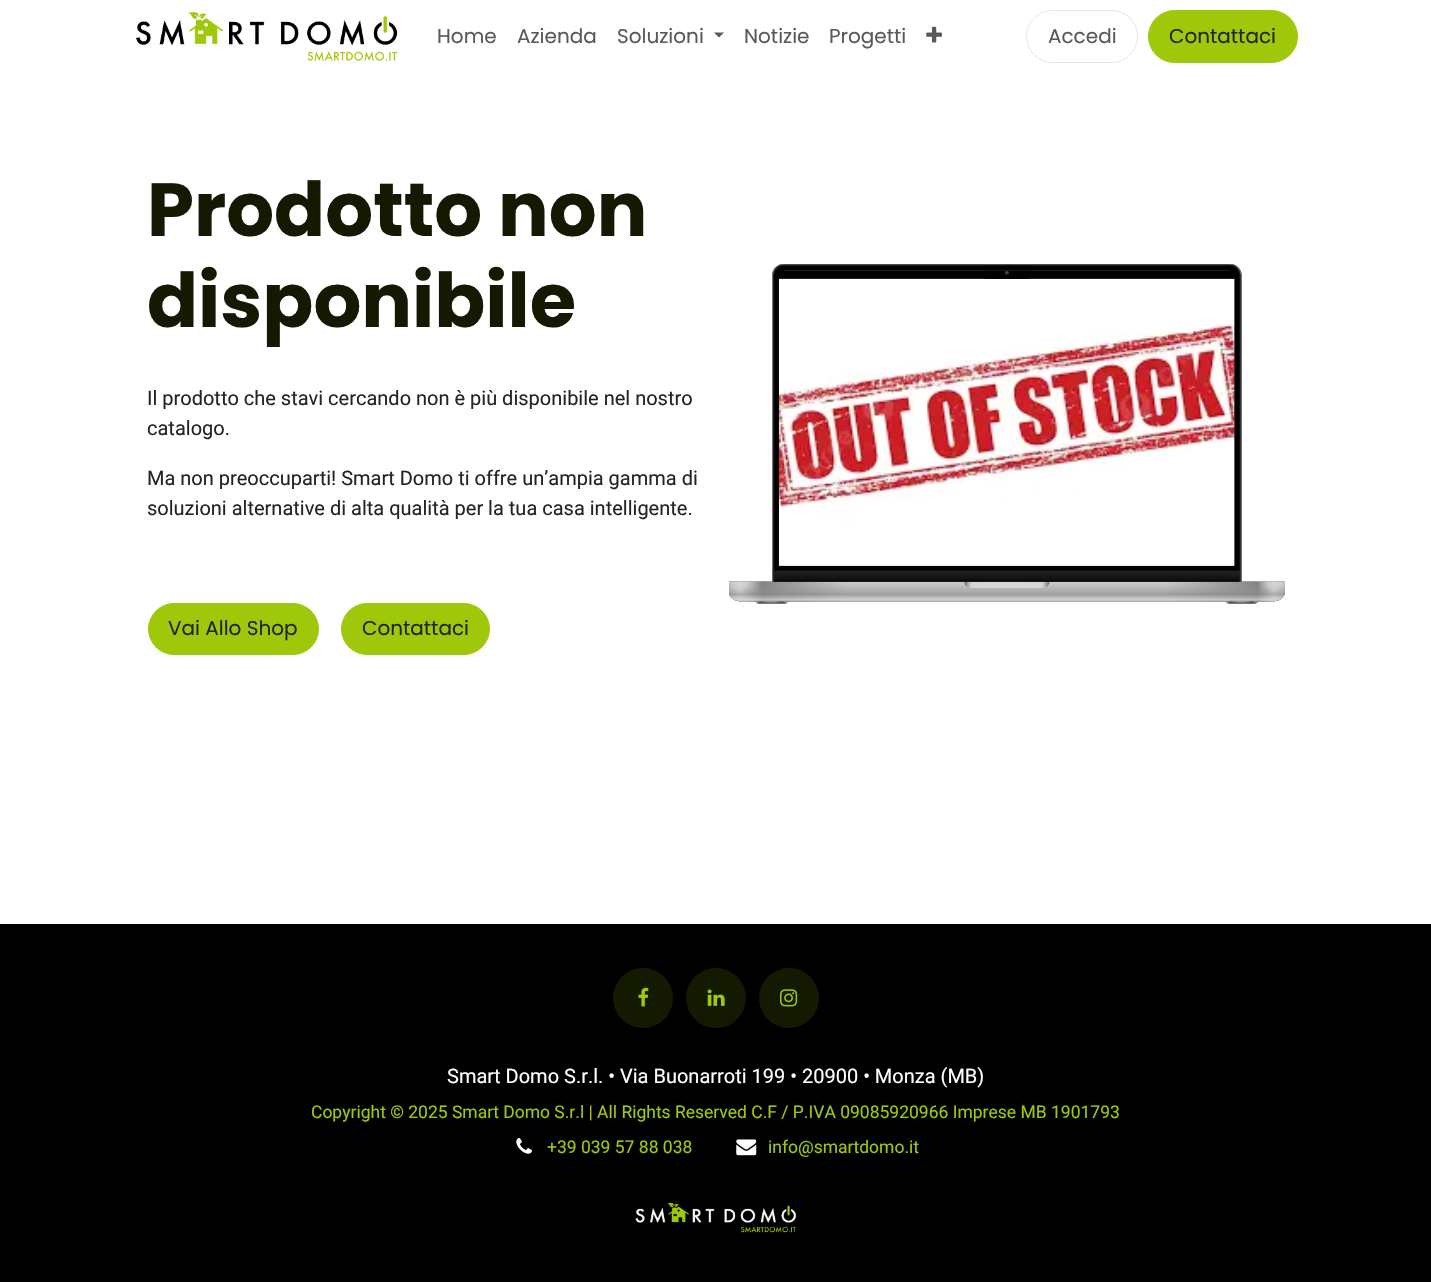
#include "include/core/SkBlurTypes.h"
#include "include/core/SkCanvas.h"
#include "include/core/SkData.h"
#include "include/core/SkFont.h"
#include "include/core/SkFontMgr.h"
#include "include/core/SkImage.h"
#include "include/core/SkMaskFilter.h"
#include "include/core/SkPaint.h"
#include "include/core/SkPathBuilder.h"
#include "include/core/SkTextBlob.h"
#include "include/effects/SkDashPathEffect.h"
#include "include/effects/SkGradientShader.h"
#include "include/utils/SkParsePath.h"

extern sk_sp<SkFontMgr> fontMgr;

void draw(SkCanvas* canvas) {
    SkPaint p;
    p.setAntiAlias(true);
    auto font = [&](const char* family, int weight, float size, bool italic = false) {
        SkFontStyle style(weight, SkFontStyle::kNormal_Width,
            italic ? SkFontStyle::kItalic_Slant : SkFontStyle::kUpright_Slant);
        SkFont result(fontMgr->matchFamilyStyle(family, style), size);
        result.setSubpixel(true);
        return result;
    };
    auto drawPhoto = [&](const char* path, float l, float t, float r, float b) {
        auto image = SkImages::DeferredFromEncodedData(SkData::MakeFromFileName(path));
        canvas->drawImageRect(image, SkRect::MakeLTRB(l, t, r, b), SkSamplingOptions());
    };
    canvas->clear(0xFFFFFFFF);
    drawPhoto("media/1.png", 136, 12, 398, 61);
    auto font1 = font("Poppins", 400, 20);
    p.setColor(0xFF595959);
    {
        const struct { const char* s; float x, y; } items[] = {
            {"Home", 437, 43},
            {"Azienda", 517, 43},
            {"Soluzioni", 617, 43},
        };
        for (auto [s, x, y] : items) {
            canvas->drawString(s, x, y, font1, p);
        }
    }
    canvas->drawPath(SkPathBuilder().moveTo(714, 32.5f).lineTo(724, 32.5f).lineTo(719, 37.5f).close().detach(), p);
    canvas->drawString("Notizie", 744, 43, font1, p);
    canvas->drawString("Progetti", 829, 43, font1, p);
    drawPhoto("media/2.png", 926, 26, 942, 43);
    p.setStyle(SkPaint::kStroke_Style);
    p.setStrokeWidth(1);
    p.setColor(0xFFE6E6E6);
    canvas->drawRoundRect(SkRect::MakeLTRB(1026.5f, 10.5f, 1137.5f, 62.5f), 26, 26, p);
    p.setStyle(SkPaint::kFill_Style);
    p.setColor(0xFF595959);
    canvas->drawString("Accedi", 1048, 43, font1, p);
    p.setColor(0xFFA0C80A);
    canvas->drawRoundRect(SkRect::MakeLTRB(1148.5f, 10.5f, 1297.5f, 62.5f), 26, 26, p);
    p.setStyle(SkPaint::kStroke_Style);
    canvas->drawRoundRect(SkRect::MakeLTRB(1148.5f, 10.5f, 1297.5f, 62.5f), 26, 26, p);
    p.setStyle(SkPaint::kFill_Style);
    p.setColor(0xFF212529);
    canvas->drawString("Contattaci", 1169, 43, font1, p);
    auto font2 = font("Poppins", 700, 75.25f);
    p.setColor(0xFF141901);
    canvas->drawString("Prodotto non", 147, 236, font2, p);
    canvas->drawString("disponibile", 147, 327, font2, p);
    auto font3 = font("Roboto", 400, 20);
    p.setColor(0xFF212529);
    {
        const struct { const char* s; float x, y; } items[] = {
            {"Il prodotto che stavi cercando non è più disponibile nel nostro", 147, 405},
            {"catalogo.", 147, 435},
            {"Ma non preoccuparti! Smart Domo ti offre un’ampia gamma di", 147, 485},
            {"soluzioni alternative di alta qualità per la tua casa intelligente.", 147, 515},
        };
        for (auto [s, x, y] : items) {
            canvas->drawString(s, x, y, font3, p);
        }
    }
    drawPhoto("media/3.png", 729, 264, 1285, 604);
    p.setColor(0xFFA0C80A);
    canvas->drawRoundRect(SkRect::MakeLTRB(148.5f, 603.5f, 318.5f, 654.5f), 25.5f, 25.5f, p);
    p.setStyle(SkPaint::kStroke_Style);
    canvas->drawRoundRect(SkRect::MakeLTRB(148.5f, 603.5f, 318.5f, 654.5f), 25.5f, 25.5f, p);
    p.setStyle(SkPaint::kFill_Style);
    p.setColor(0xFF212529);
    canvas->drawString("Vai Allo Shop", 168, 635, font1, p);
    p.setColor(0xFFA0C80A);
    canvas->drawRoundRect(SkRect::MakeLTRB(341.5f, 603.5f, 489.5f, 654.5f), 25.5f, 25.5f, p);
    p.setStyle(SkPaint::kStroke_Style);
    canvas->drawRoundRect(SkRect::MakeLTRB(341.5f, 603.5f, 489.5f, 654.5f), 25.5f, 25.5f, p);
    p.setStyle(SkPaint::kFill_Style);
    p.setColor(0xFF212529);
    canvas->drawString("Contattaci", 362, 635, font1, p);
    p.setColor(0xFF000000);
    canvas->drawRect(SkRect::MakeLTRB(0, 924, 1431, 1282), p);
    p.setColor(0xFF141901);
    canvas->drawCircle(643, 998, 30, p);
    drawPhoto("media/4.png", 638, 987, 649, 1007);
    canvas->drawCircle(716, 998, 30, p);
    drawPhoto("media/5.png", 707, 989, 725, 1006);
    canvas->drawCircle(789, 998, 30, p);
    drawPhoto("media/6.png", 780, 989, 798, 1007);
    p.setColor(0xFFFFFFFF);
    canvas->drawString("Smart Domo S.r.l. • Via Buonarroti 199 • 20900 • Monza (MB)", 447, 1083, font3, p);
    auto font4 = font("Roboto", 400, 17.5f);
    p.setColor(0xFFA0C80A);
    canvas->drawString("Copyright © 2025 Smart Domo S.r.l | All Rights Reserved C.F / P.IVA 09085920966 Imprese MB 1901793", 311, 1118, font4, p);
    drawPhoto("media/7.png", 516, 1138, 532, 1154);
    canvas->drawString("+39 039 57 88 038", 547, 1153, font4, p);
    drawPhoto("media/8.png", 736, 1139, 757, 1156);
    canvas->drawString("info@smartdomo.it", 768, 1153, font4, p);
    drawPhoto("media/9.png", 635, 1202, 797, 1233);
}
